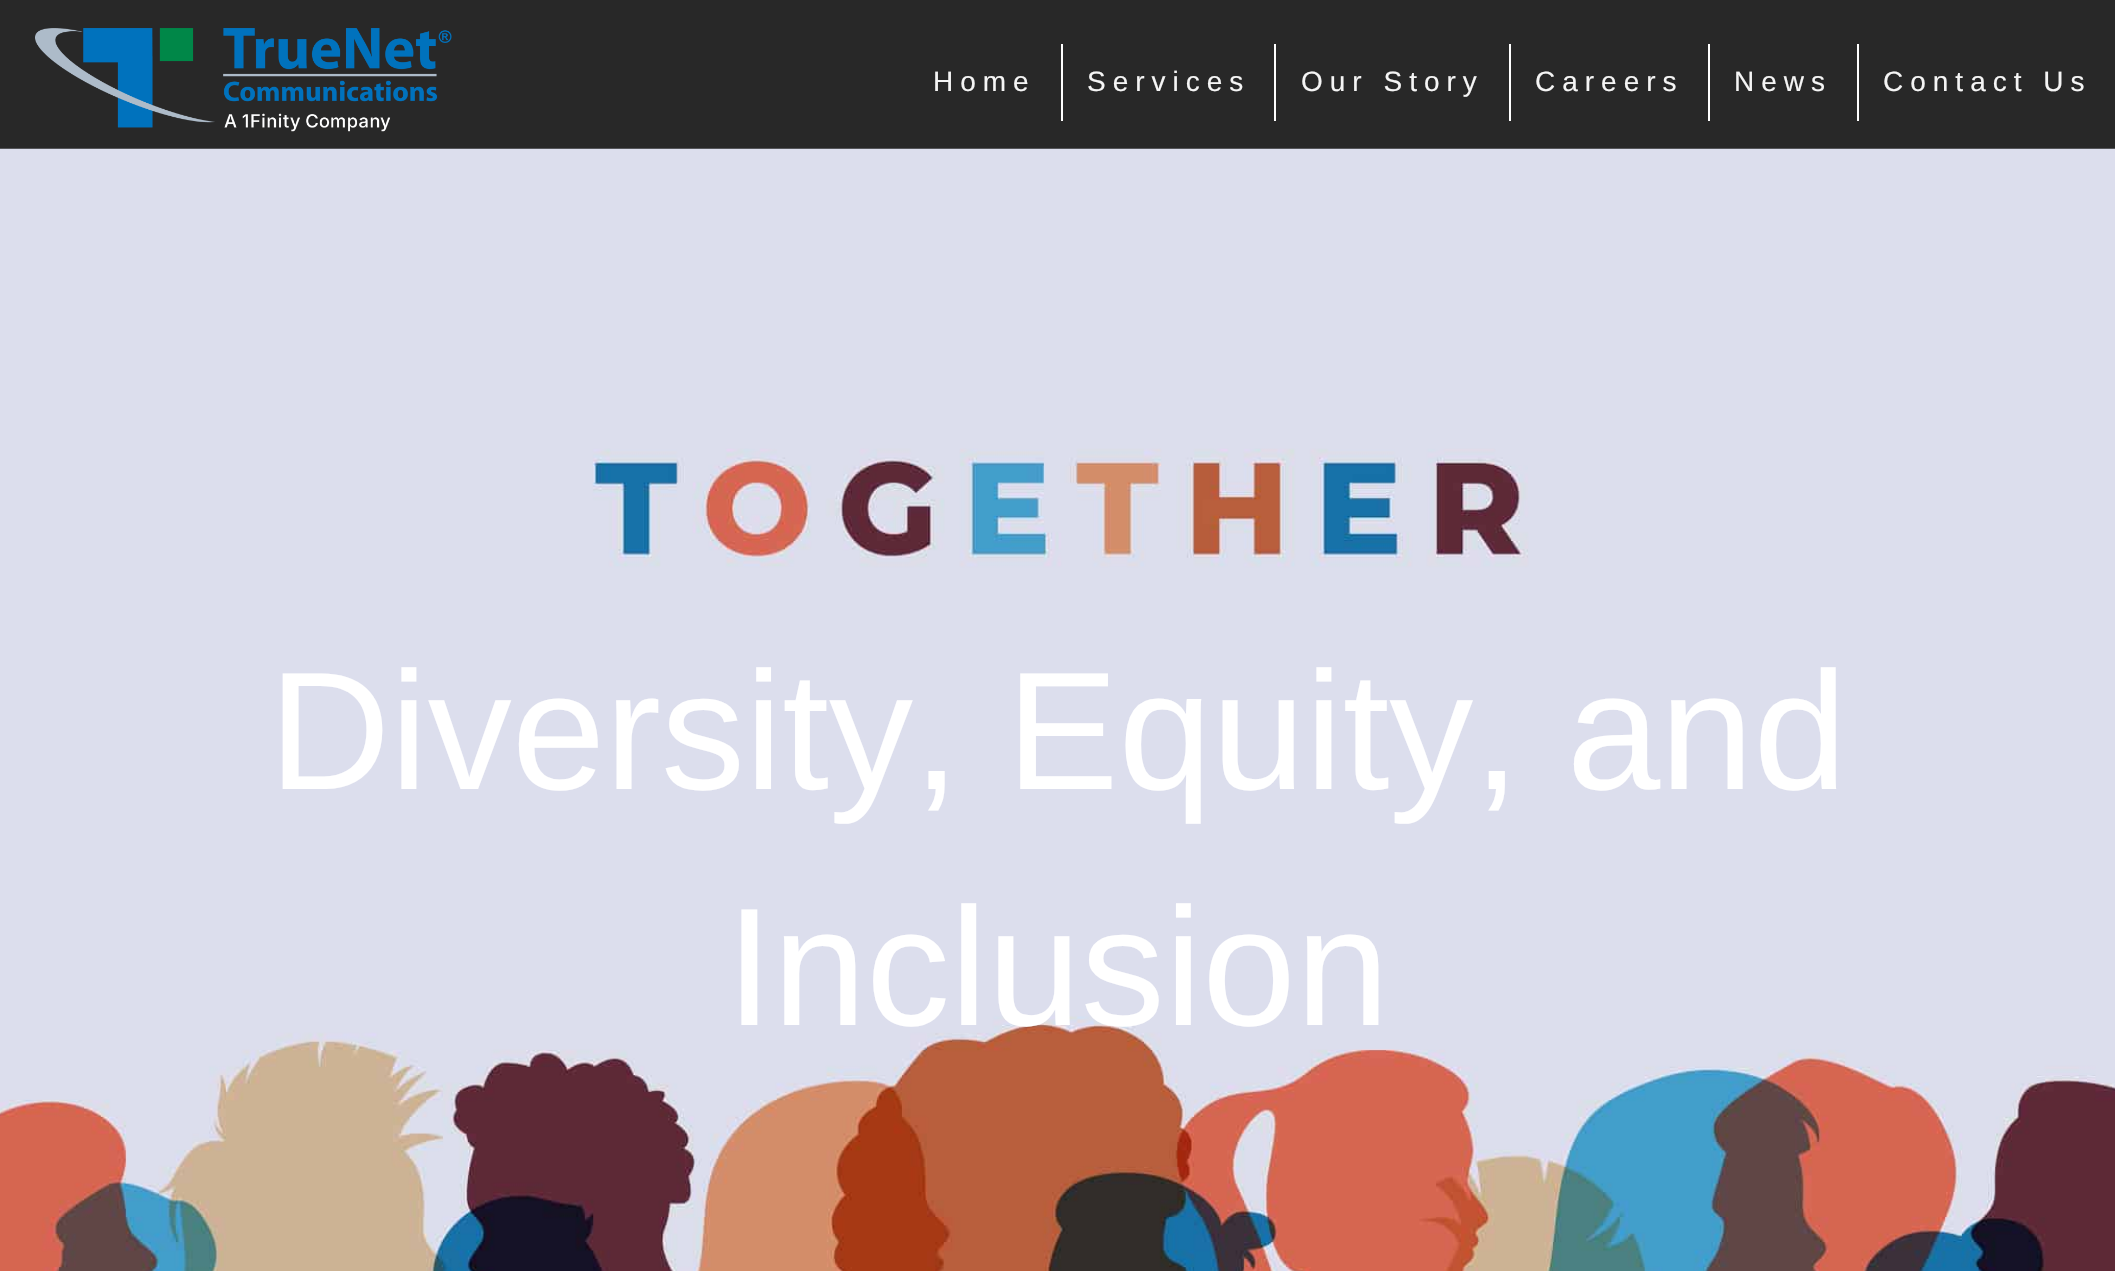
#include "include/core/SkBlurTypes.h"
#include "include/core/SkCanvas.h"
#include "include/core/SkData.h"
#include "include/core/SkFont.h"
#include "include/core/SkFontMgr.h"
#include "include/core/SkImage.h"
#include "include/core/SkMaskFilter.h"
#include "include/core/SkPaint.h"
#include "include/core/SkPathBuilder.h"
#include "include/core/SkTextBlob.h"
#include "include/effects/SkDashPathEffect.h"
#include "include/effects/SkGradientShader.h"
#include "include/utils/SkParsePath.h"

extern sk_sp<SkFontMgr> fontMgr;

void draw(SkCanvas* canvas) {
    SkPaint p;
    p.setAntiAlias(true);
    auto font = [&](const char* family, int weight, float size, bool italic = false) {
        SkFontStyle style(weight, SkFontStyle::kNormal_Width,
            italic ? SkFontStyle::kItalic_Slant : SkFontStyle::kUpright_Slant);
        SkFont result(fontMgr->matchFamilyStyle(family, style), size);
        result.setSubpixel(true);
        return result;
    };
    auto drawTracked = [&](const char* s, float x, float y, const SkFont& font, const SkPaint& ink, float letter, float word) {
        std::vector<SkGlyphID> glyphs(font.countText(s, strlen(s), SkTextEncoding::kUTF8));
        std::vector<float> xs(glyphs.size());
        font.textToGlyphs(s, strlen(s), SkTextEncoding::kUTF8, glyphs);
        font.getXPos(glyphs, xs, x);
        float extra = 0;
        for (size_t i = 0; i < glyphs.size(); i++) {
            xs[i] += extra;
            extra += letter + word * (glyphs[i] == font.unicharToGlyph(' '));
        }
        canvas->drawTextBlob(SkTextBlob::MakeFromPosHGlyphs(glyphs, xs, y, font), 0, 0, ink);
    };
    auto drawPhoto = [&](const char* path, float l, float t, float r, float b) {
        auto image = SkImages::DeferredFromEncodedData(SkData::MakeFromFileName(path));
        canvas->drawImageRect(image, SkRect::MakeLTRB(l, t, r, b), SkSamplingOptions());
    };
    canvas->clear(0xFF282828);
    drawPhoto("media/1.png", 35, 28, 452, 132);
    auto font1 = font("Liberation Sans", 400, 28);
    p.setColor(0xFFF5F5F5);
    drawTracked("Home", 933, 91, font1, p, 7, 0);
    p.setColor(0xFFFFFFFF);
    canvas->drawRect(SkRect::MakeLTRB(1061, 44, 1063, 121), p);
    p.setColor(0xFFF5F5F5);
    drawTracked("Services", 1087, 91, font1, p, 7, 0);
    p.setColor(0xFFFFFFFF);
    canvas->drawRect(SkRect::MakeLTRB(1274, 44, 1276, 121), p);
    p.setColor(0xFFF5F5F5);
    drawTracked("Our Story", 1301, 91, font1, p, 7, 0);
    p.setColor(0xFFFFFFFF);
    canvas->drawRect(SkRect::MakeLTRB(1509, 44, 1511, 121), p);
    p.setColor(0xFFF5F5F5);
    drawTracked("Careers", 1535, 91, font1, p, 7, 0);
    p.setColor(0xFFFFFFFF);
    canvas->drawRect(SkRect::MakeLTRB(1708, 44, 1710, 121), p);
    p.setColor(0xFFF5F5F5);
    drawTracked("News", 1734, 91, font1, p, 7, 0);
    p.setColor(0xFFFFFFFF);
    canvas->drawRect(SkRect::MakeLTRB(1857, 44, 1859, 121), p);
    p.setColor(0xFFF5F5F5);
    drawTracked("Contact Us", 1883, 91, font1, p, 7, 0);
    drawPhoto("media/2.png", 0, 148, 2115, 1271);
    auto font2 = font("Liberation Sans", 400, 168);
    p.setColor(0xFFFFFFFF);
    canvas->drawString("Diversity, Equity, and", 269, 789, font2, p);
    canvas->drawString("Inclusion", 726, 1025, font2, p);
}
